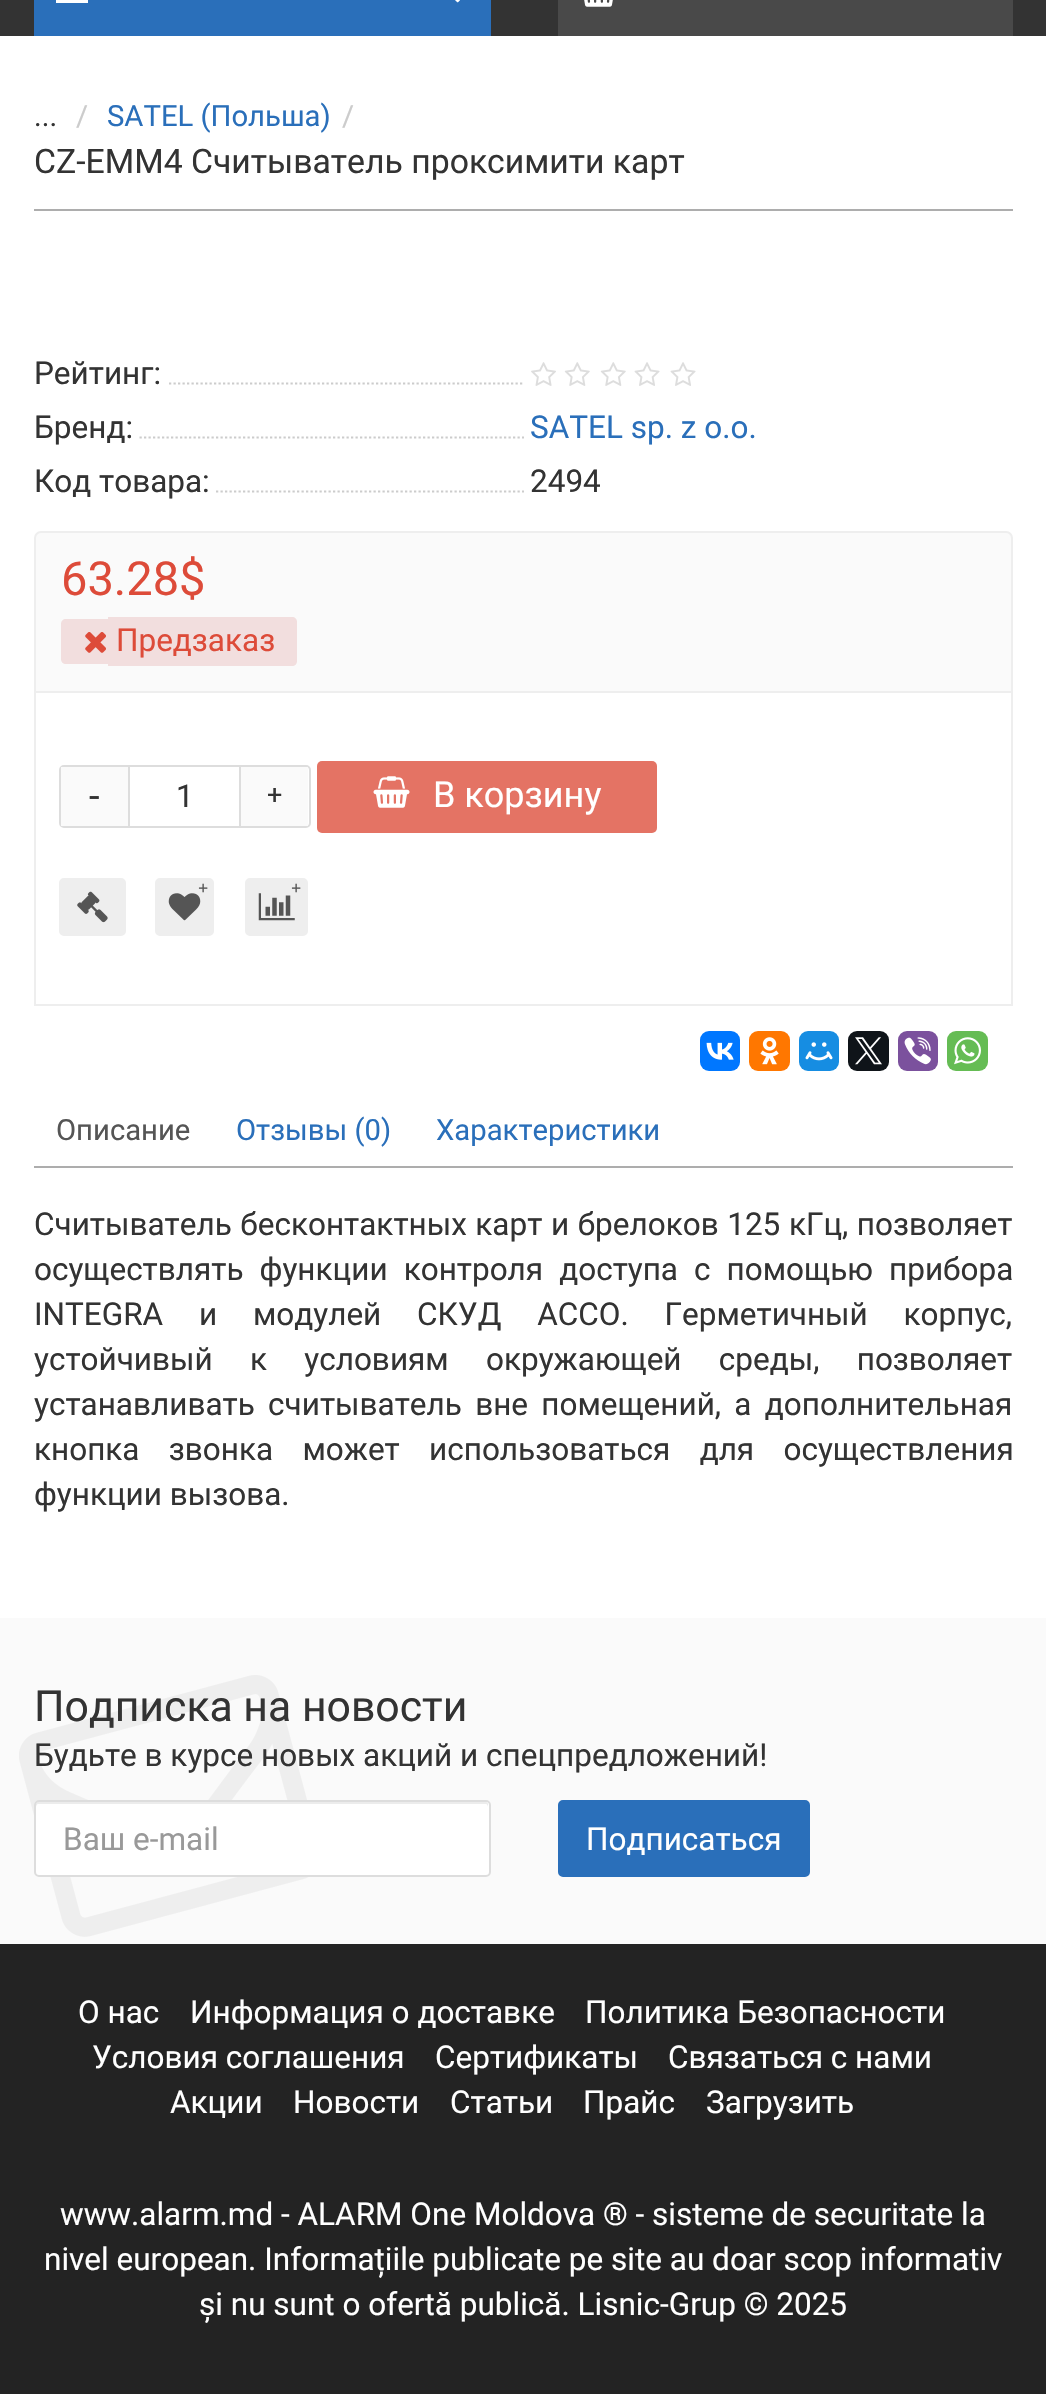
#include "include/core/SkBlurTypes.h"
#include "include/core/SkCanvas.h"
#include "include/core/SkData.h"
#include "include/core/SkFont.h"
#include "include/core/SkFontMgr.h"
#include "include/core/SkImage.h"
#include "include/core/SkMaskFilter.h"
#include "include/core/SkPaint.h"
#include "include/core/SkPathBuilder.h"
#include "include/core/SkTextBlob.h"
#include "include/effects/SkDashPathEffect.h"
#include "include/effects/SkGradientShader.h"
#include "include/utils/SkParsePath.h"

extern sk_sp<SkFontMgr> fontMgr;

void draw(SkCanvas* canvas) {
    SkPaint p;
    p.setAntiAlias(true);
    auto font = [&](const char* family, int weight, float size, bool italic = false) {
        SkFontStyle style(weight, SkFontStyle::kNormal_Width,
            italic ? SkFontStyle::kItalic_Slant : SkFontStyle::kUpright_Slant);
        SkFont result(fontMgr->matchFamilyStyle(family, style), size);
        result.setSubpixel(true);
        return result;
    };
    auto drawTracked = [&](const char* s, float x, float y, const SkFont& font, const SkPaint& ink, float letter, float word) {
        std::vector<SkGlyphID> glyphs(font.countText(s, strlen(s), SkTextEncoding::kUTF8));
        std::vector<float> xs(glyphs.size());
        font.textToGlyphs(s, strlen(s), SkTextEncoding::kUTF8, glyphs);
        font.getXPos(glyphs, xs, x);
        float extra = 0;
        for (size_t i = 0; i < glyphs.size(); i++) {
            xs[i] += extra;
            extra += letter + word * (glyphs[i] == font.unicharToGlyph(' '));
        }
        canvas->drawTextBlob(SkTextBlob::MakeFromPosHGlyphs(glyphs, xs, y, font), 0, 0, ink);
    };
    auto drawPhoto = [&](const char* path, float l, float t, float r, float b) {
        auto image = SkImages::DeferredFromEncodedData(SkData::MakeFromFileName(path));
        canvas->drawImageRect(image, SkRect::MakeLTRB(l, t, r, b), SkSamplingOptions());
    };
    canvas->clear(0xFFFFFFFF);
    {
        const struct { float l, t, r, b; SkColor color; } items[] = {
            {0, 0, 1046, 36, 0xFF333333},
            {34, 0, 491, 36, 0xFF2A6FBA},
            {56, 0, 88, 3, 0xFFFFFFFF},
        };
        for (auto [l, t, r, b, color] : items) {
            p.setColor(color);
            canvas->drawRect(SkRect::MakeLTRB(l, t, r, b), p);
        }
    }
    drawPhoto("media/1.png", 455, 0, 460, 3);
    p.setColor(0xFF494949);
    canvas->drawRect(SkRect::MakeLTRB(558, 0, 1013, 36), p);
    drawPhoto("media/2.png", 584, 0, 613, 7);
    p.setColor(0xFFADADAD);
    canvas->drawRect(SkRect::MakeLTRB(34, 209, 1013, 211), p);
    auto font1 = font("Roboto", 400, 29.25f);
    p.setColor(0xFF2A6FBA);
    canvas->drawString("SATEL (Польша)", 107, 126, font1, p);
    p.setColor(0xFFCCCCCC);
    canvas->drawString("/", 342, 126, font1, p);
    auto font2 = font("Roboto", 400, 33.75f);
    p.setColor(0xFF333333);
    canvas->drawString("CZ-EMM4 Считыватель проксимити карт", 34, 173, font2, p);
    canvas->drawString("...", 34, 126, font1, p);
    p.setColor(0xFFCCCCCC);
    canvas->drawString("/", 76, 126, font1, p);
    auto font3 = font("Roboto", 400, 31.5f);
    p.setColor(0xFF333333);
    canvas->drawString("Рейтинг:", 34, 384, font3, p);
    canvas->save();
    canvas->clipRect(SkRect::MakeLTRB(34, 347, 524, 401));
    p.setStyle(SkPaint::kStroke_Style);
    p.setStrokeWidth(2.2f);
    p.setColor(0xFFCCCCCC);
    p.setPathEffect(SkDashPathEffect::Make({{2.25f, 2.25f}}, 0));
    canvas->drawPath(SkPathBuilder().moveTo(169, 383.5f).lineTo(657, 383.5f).detach(), p);
    p.setPathEffect(nullptr);
    canvas->restore();
    drawPhoto("media/3.png", 531, 362, 556, 386);
    drawPhoto("media/4.png", 564, 362, 590, 386);
    drawPhoto("media/4.png", 600, 362, 626, 386);
    drawPhoto("media/5.png", 634, 362, 660, 386);
    drawPhoto("media/5.png", 670, 362, 696, 386);
    p.setStyle(SkPaint::kFill_Style);
    p.setColor(0xFF333333);
    canvas->drawString("Бренд:", 34, 438, font3, p);
    canvas->save();
    canvas->clipRect(SkRect::MakeLTRB(34, 401, 524, 455));
    p.setStyle(SkPaint::kStroke_Style);
    p.setColor(0xFFCCCCCC);
    p.setPathEffect(SkDashPathEffect::Make({{2.25f, 2.25f}}, 0));
    canvas->drawPath(SkPathBuilder().moveTo(139.5f, 437.5f).lineTo(630, 437.5f).detach(), p);
    p.setPathEffect(nullptr);
    canvas->restore();
    p.setStyle(SkPaint::kFill_Style);
    p.setColor(0xFF2A6FBA);
    canvas->drawString("SATEL sp. z o.o.", 530, 438, font3, p);
    p.setColor(0xFF333333);
    canvas->drawString("Код товара:", 34, 492, font3, p);
    canvas->save();
    canvas->clipRect(SkRect::MakeLTRB(34, 455, 524, 509));
    p.setStyle(SkPaint::kStroke_Style);
    p.setColor(0xFFCCCCCC);
    p.setPathEffect(SkDashPathEffect::Make({{2.25f, 2.25f}}, 0));
    canvas->drawPath(SkPathBuilder().moveTo(216, 491.5f).lineTo(706.5f, 491.5f).detach(), p);
    p.setPathEffect(nullptr);
    canvas->restore();
    p.setStyle(SkPaint::kFill_Style);
    p.setColor(0xFF333333);
    canvas->drawString("2494", 530, 492, font3, p);
    p.setColor(0xFFFAFAFA);
    canvas->drawRoundRect(SkRect::MakeLTRB(35, 532, 1012, 1005), 6, 6, p);
    p.setStyle(SkPaint::kStroke_Style);
    p.setStrokeWidth(2);
    p.setColor(0xFFEEEEEE);
    canvas->drawRoundRect(SkRect::MakeLTRB(35, 532, 1012, 1005), 6, 6, p);
    auto font4 = font("Roboto", 400, 47);
    p.setStyle(SkPaint::kFill_Style);
    p.setColor(0xFFDD4B39);
    canvas->drawString("63.28$", 61, 595, font4, p);
    p.setColor(0xFFF2DEDE);
    canvas->drawPath(SkPathBuilder().moveTo(66, 619).lineTo(108, 619).lineTo(108, 664).lineTo(66, 664).cubicTo(63, 664, 61, 662, 61, 659).lineTo(61, 624).cubicTo(61, 621, 63, 619, 66, 619).close().detach(), p);
    canvas->drawPath(SkPathBuilder().moveTo(108, 617).lineTo(292, 617).cubicTo(295, 617, 297, 619, 297, 622).lineTo(297, 661).cubicTo(297, 664, 295, 666, 292, 666).lineTo(108, 666).close().detach(), p);
    drawPhoto("media/6.png", 85, 632, 106, 653);
    p.setColor(0xFFDD4B39);
    canvas->drawString("Предзаказ", 116, 651, font3, p);
    p.setColor(0xFFFFFFFF);
    canvas->drawRect(SkRect::MakeLTRB(35, 692, 1012, 1005), p);
    p.setStyle(SkPaint::kStroke_Style);
    p.setColor(0xFFEEEEEE);
    canvas->drawRect(SkRect::MakeLTRB(35, 692, 1012, 1005), p);
    p.setColor(0xFFDDDDDD);
    canvas->drawRoundRect(SkRect::MakeLTRB(60, 766, 310, 827), 4, 4, p);
    p.setStyle(SkPaint::kFill_Style);
    canvas->drawRect(SkRect::MakeLTRB(239, 767, 241, 826), p);
    canvas->drawRect(SkRect::MakeLTRB(128, 767, 130, 826), p);
    p.setColor(0xFF333333);
    canvas->drawString("1", 176, 807, font3, p);
    p.setColor(0xFFFAFAFA);
    canvas->drawRect(SkRect::MakeLTRB(61, 767, 128, 826), p);
    auto font5 = font("Roboto", 400, 38);
    p.setColor(0xFF333333);
    canvas->drawString("-", 89, 809, font5, p);
    p.setColor(0xFFFAFAFA);
    canvas->drawRect(SkRect::MakeLTRB(241, 767, 308, 826), p);
    auto font6 = font("Roboto", 400, 27);
    p.setColor(0xFF333333);
    canvas->drawString("+", 267, 804, font6, p);
    p.setColor(0xFFE47364);
    canvas->drawRoundRect(SkRect::MakeLTRB(317, 761, 657, 833), 5, 5, p);
    drawPhoto("media/7.png", 373, 776, 410, 808);
    auto font7 = font("Roboto", 400, 36);
    p.setColor(0xFFFFFFFF);
    canvas->drawString("В корзину", 433, 807, font7, p);
    p.setColor(0xFFEEEEEE);
    canvas->drawRoundRect(SkRect::MakeLTRB(61.5f, 880.5f, 123.5f, 933.5f), 2.5f, 2.5f, p);
    p.setStyle(SkPaint::kStroke_Style);
    p.setStrokeWidth(5);
    canvas->drawRoundRect(SkRect::MakeLTRB(61.5f, 880.5f, 123.5f, 933.5f), 2.5f, 2.5f, p);
    drawPhoto("media/8.png", 77, 891, 108, 923);
    p.setStyle(SkPaint::kFill_Style);
    canvas->drawRoundRect(SkRect::MakeLTRB(157.5f, 880.5f, 211.5f, 933.5f), 2.5f, 2.5f, p);
    p.setStyle(SkPaint::kStroke_Style);
    canvas->drawRoundRect(SkRect::MakeLTRB(157.5f, 880.5f, 211.5f, 933.5f), 2.5f, 2.5f, p);
    auto font8 = font("Liberation Serif", 700, 18);
    p.setStyle(SkPaint::kFill_Style);
    p.setColor(0xFF555555);
    canvas->drawString("+", 198, 894, font8, p);
    drawPhoto("media/9.png", 168, 893, 201, 921);
    p.setColor(0xFFEEEEEE);
    canvas->drawRoundRect(SkRect::MakeLTRB(247.5f, 880.5f, 305.5f, 933.5f), 2.5f, 2.5f, p);
    p.setStyle(SkPaint::kStroke_Style);
    canvas->drawRoundRect(SkRect::MakeLTRB(247.5f, 880.5f, 305.5f, 933.5f), 2.5f, 2.5f, p);
    p.setStyle(SkPaint::kFill_Style);
    p.setColor(0xFF555555);
    canvas->drawString("+", 291, 894, font8, p);
    drawPhoto("media/10.png", 258, 893, 295, 921);
    p.setColor(0xFF0077FF);
    canvas->drawRoundRect(SkRect::MakeLTRB(700, 1031, 740, 1071), 9, 9, p);
    drawPhoto("media/11.png", 706, 1042, 734, 1060);
    p.setColor(0xFFFF7700);
    canvas->drawRoundRect(SkRect::MakeLTRB(749, 1031, 790, 1071), 9, 9, p);
    drawPhoto("media/12.png", 760, 1037, 779, 1065);
    p.setColor(0xFF168DE2);
    canvas->drawRoundRect(SkRect::MakeLTRB(799, 1031, 839, 1071), 9, 9, p);
    drawPhoto("media/13.png", 805, 1042, 833, 1061);
    p.setColor(0xFF0F1419);
    canvas->drawRoundRect(SkRect::MakeLTRB(848, 1031, 889, 1071), 9, 9, p);
    drawPhoto("media/14.png", 855, 1037, 882, 1065);
    p.setColor(0xFF7B519D);
    canvas->drawRoundRect(SkRect::MakeLTRB(898, 1031, 938, 1071), 9, 9, p);
    drawPhoto("media/15.png", 904, 1037, 931, 1065);
    p.setColor(0xFF65BC54);
    canvas->drawRoundRect(SkRect::MakeLTRB(947, 1031, 988, 1071), 9, 9, p);
    drawPhoto("media/16.png", 954, 1037, 981, 1065);
    p.setColor(0xFFADADAD);
    canvas->drawRect(SkRect::MakeLTRB(34, 1166, 1013, 1168), p);
    p.setColor(0xFF555555);
    canvas->drawString("Описание", 56, 1140, font1, p);
    p.setColor(0xFF2A6FBA);
    canvas->drawString("Отзывы (0)", 236, 1140, font1, p);
    canvas->drawString("Характеристики", 436, 1140, font1, p);
    p.setColor(0xFF333333);
    drawTracked("Считыватель бесконтактных карт и брелоков 125 кГц, позволяет", 34, 1235, font3, p, 0, 0.75f);
    drawTracked("осуществлять функции контроля доступа с помощью прибора", 34, 1280, font3, p, 0, 8.25f);
    drawTracked("INTEGRA и модулей СКУД АССО. Герметичный корпус,", 34, 1325, font3, p, 0, 28);
    drawTracked("устойчивый к условиям окружающей среды, позволяет", 34, 1370, font3, p, 0, 29.5f);
    drawTracked("устанавливать считыватель вне помещений, а дополнительная", 34, 1415, font3, p, 0, 5.5f);
    drawTracked("кнопка звонка может использоваться для осуществления", 34, 1460, font3, p, 0, 21.5f);
    canvas->drawString("функции вызова.", 34, 1505, font3, p);
    p.setColor(0xFFFAFAFA);
    canvas->drawRect(SkRect::MakeLTRB(0, 1618, 1046, 1944), p);
    drawPhoto("media/17.png", 19, 1675, 309, 1937);
    auto font9 = font("Roboto", 400, 42.75f);
    p.setColor(0xFF333333);
    canvas->drawString("Подписка на новости", 34, 1721, font9, p);
    canvas->drawString("Будьте в курсе новых акций и спецпредложений!", 34, 1766, font3, p);
    p.setColor(0xFFFFFFFF);
    canvas->drawRoundRect(SkRect::MakeLTRB(34, 1800, 491, 1877), 5, 5, p);
    p.setColor(0xFFECECEC);
    canvas->drawPath(SkPathBuilder().moveTo(38, 1804).lineTo(486, 1804).cubicTo(487, 1804, 488, 1806, 488, 1807).lineTo(488, 1804).cubicTo(488, 1803, 487, 1802, 486, 1802).lineTo(38, 1802).cubicTo(37, 1802, 36, 1803, 36, 1804).lineTo(36, 1807).cubicTo(36, 1806, 37, 1804, 38, 1804).close().detach(), p);
    p.setStyle(SkPaint::kStroke_Style);
    p.setStrokeWidth(2);
    p.setColor(0xFFDDDDDD);
    canvas->drawRoundRect(SkRect::MakeLTRB(35, 1801, 490, 1876), 4, 4, p);
    p.setStyle(SkPaint::kFill_Style);
    p.setColor(0xFF999999);
    canvas->drawString("Ваш e-mail", 63, 1850, font3, p);
    p.setColor(0xFF2A6FBA);
    canvas->drawRoundRect(SkRect::MakeLTRB(559, 1801, 809, 1876), 4, 4, p);
    p.setStyle(SkPaint::kStroke_Style);
    canvas->drawRoundRect(SkRect::MakeLTRB(559, 1801, 809, 1876), 4, 4, p);
    p.setStyle(SkPaint::kFill_Style);
    p.setColor(0xFFFFFFFF);
    canvas->drawString("Подписаться", 586, 1850, font3, p);
    p.setColor(0xFF232323);
    canvas->drawRect(SkRect::MakeLTRB(0, 1944, 1046, 2394), p);
    p.setColor(0xFFFFFFFF);
    {
        const struct { const char* s; float x, y; } items[] = {
            {"О нас", 78, 2023},
            {"Информация о доставке", 190, 2023},
            {"Политика Безопасности", 585, 2023},
            {"Условия соглашения", 92, 2068},
            {"Сертификаты", 435, 2068},
            {"Связаться с нами", 668, 2068},
            {"Акции", 170, 2113},
            {"Новости", 293, 2113},
            {"Статьи", 450, 2113},
            {"Прайс", 583, 2113},
            {"Загрузить", 706, 2113},
            {"www.alarm.md - ALARM One Moldova ® - sisteme de securitate la", 60, 2225},
            {"nivel european. Informațiile publicate pe site au doar scop informativ", 44, 2270},
            {"și nu sunt o ofertă publică. Lisnic-Grup © 2025", 199, 2315},
        };
        for (auto [s, x, y] : items) {
            canvas->drawString(s, x, y, font3, p);
        }
    }
}
